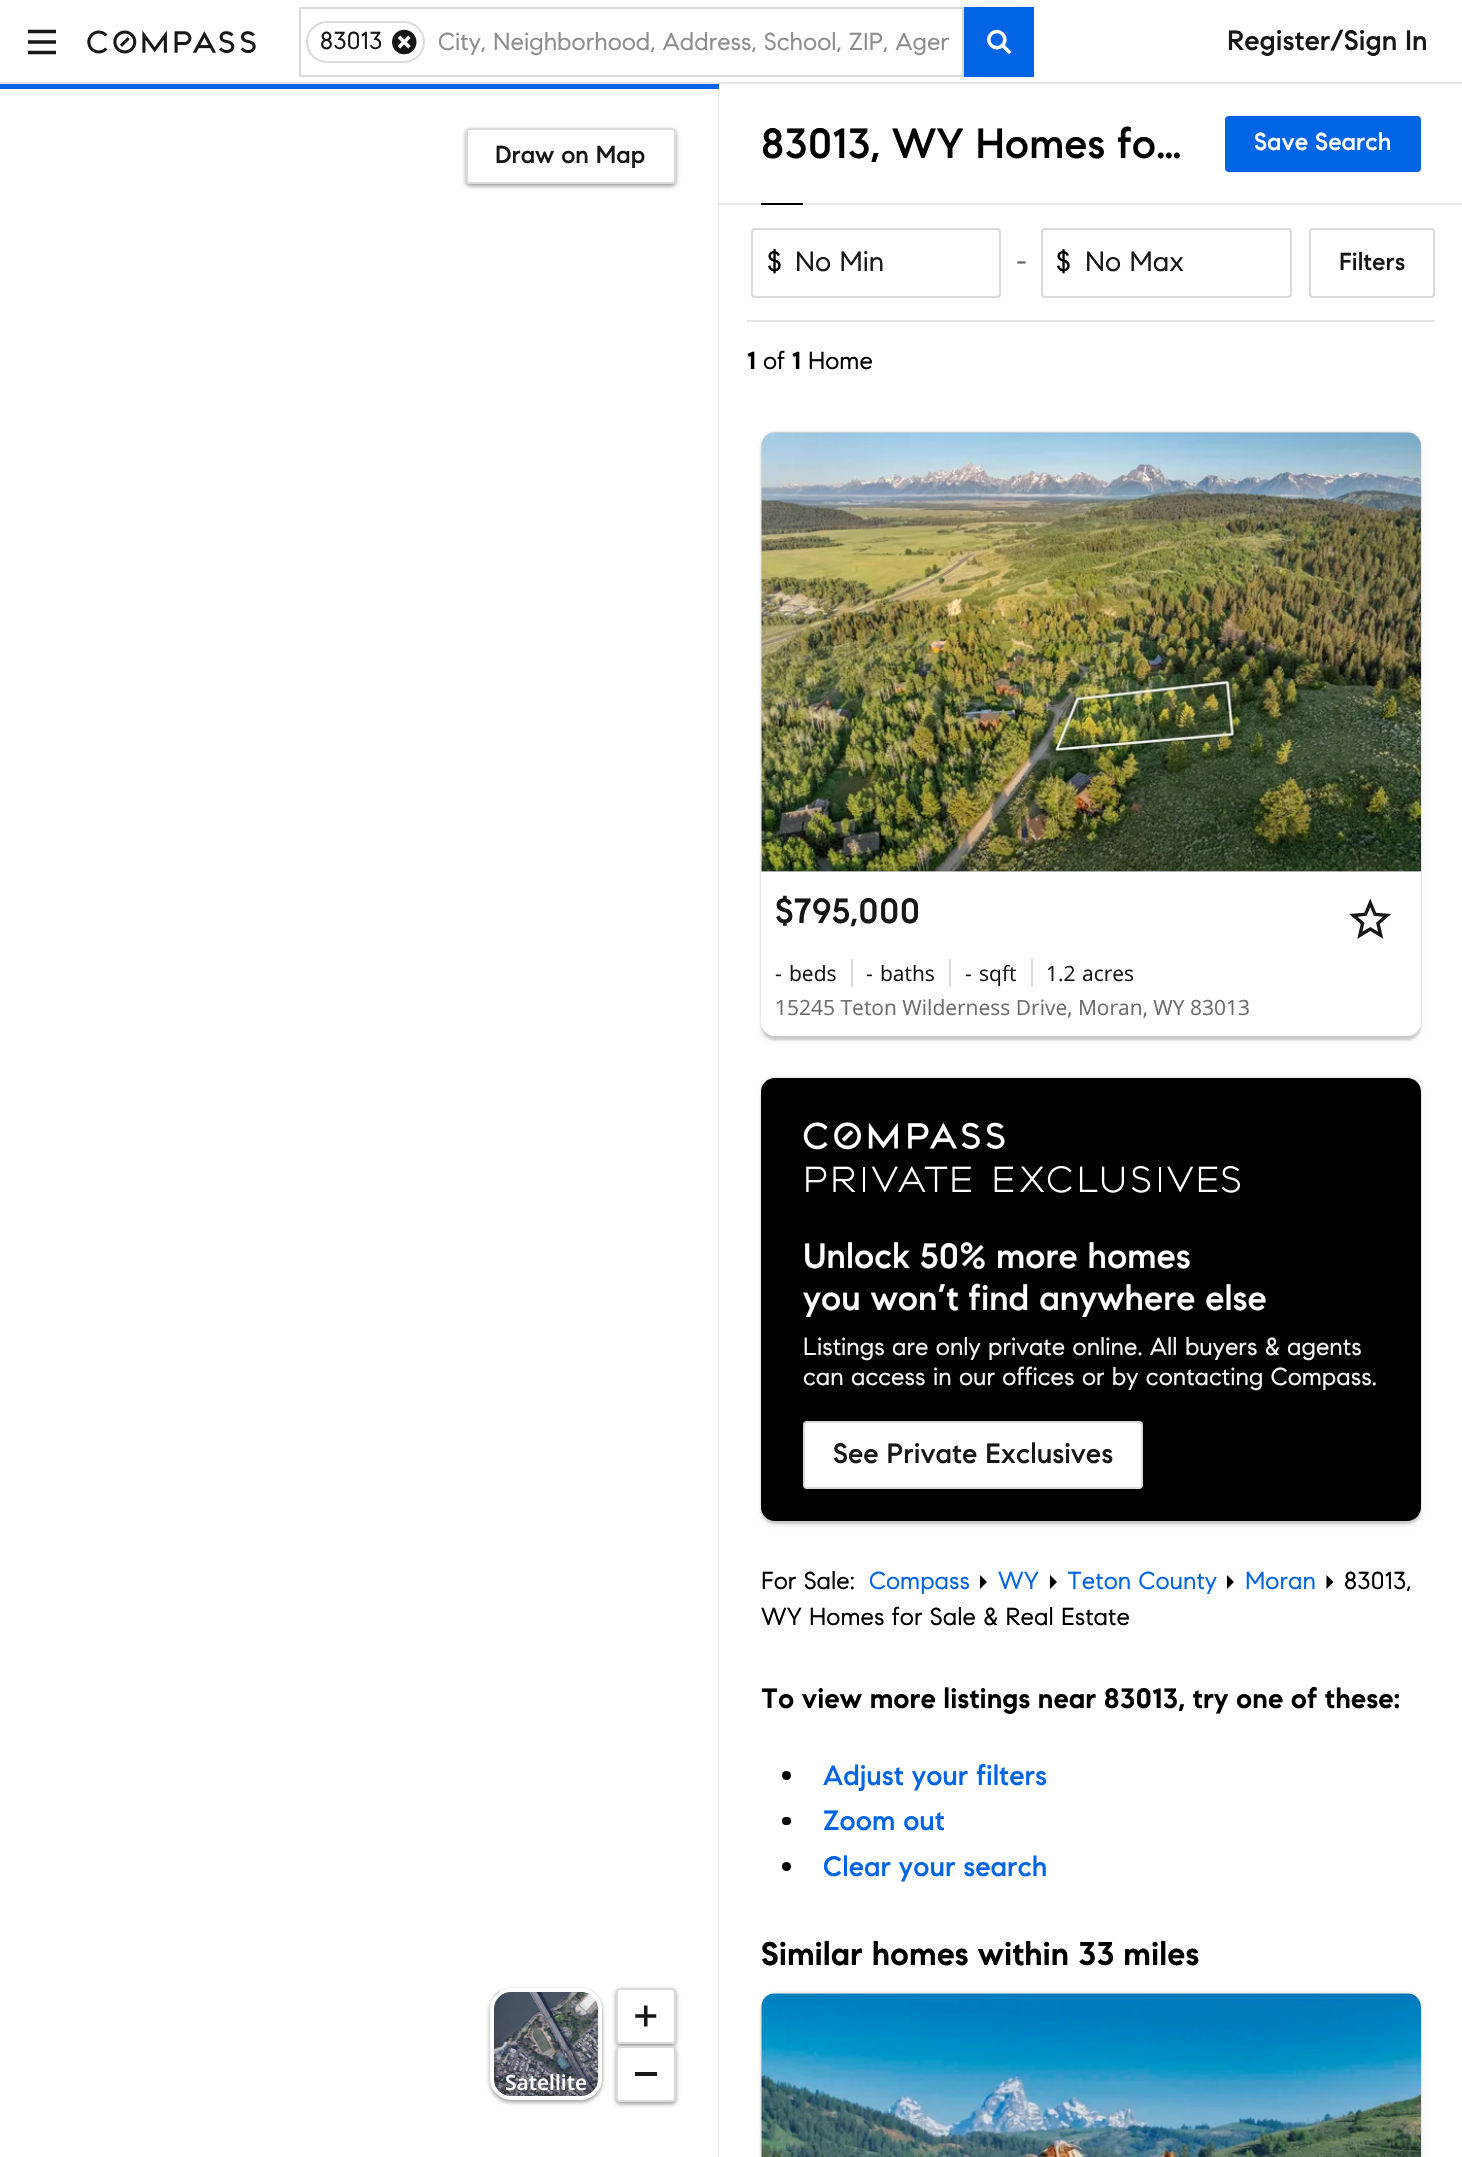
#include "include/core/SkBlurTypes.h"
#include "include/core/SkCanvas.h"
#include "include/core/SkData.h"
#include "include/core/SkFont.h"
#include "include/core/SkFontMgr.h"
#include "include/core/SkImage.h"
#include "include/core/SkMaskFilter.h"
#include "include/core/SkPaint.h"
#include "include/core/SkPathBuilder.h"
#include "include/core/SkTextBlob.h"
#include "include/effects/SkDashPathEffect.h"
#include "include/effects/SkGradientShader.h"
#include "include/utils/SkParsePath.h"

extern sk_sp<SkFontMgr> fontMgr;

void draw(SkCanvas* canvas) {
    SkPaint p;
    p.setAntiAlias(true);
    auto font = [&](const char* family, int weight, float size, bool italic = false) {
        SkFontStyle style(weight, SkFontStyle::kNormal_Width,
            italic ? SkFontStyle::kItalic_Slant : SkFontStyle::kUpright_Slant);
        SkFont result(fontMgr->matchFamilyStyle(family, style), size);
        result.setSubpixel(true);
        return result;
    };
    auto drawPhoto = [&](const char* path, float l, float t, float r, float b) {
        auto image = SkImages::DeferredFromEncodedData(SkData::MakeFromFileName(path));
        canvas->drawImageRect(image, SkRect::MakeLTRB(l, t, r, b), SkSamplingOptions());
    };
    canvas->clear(0xFFFFFFFF);
    p.setColor(0xFFE6E6E6);
    canvas->drawRect(SkRect::MakeLTRB(0, 82, 1462, 84), p);
    drawPhoto("media/1.png", 28, 29, 56, 55);
    drawPhoto("media/2.png", 87, 30, 256, 54);
    p.setStyle(SkPaint::kStroke_Style);
    p.setStrokeWidth(2);
    p.setColor(0xFFDADADA);
    canvas->drawRect(SkRect::MakeLTRB(300, 8, 963, 76), p);
    canvas->drawRoundRect(SkRect::MakeLTRB(307, 22, 424, 62), 20, 20, p);
    auto font1 = font("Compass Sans", 400, 24.5f);
    p.setStyle(SkPaint::kFill_Style);
    p.setColor(0xFF171717);
    canvas->drawString("83013", 320, 49, font1, p);
    drawPhoto("media/3.png", 392, 29, 417, 55);
    canvas->save();
    canvas->clipRect(SkRect::MakeLTRB(439, 28, 949, 58));
    p.setColor(0xFF8D8D8D);
    canvas->drawString("City, Neighborhood, Address, School, ZIP, Agen", 438, 50, font1, p);
    canvas->restore();
    p.setColor(0xFF0064E5);
    canvas->drawRect(SkRect::MakeLTRB(964, 7, 1034, 77), p);
    drawPhoto("media/4.png", 987, 29, 1012, 55);
    auto font2 = font("Compass Sans", 500, 28);
    p.setColor(0xFF171717);
    canvas->drawString("Register/Sign In", 1227, 50, font2, p);
    p.setColor(0x14000000);
    canvas->drawPath(SkPathBuilder().moveTo(719, 84).lineTo(719, 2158).lineTo(718, 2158).lineTo(718, 86).close().detach(), p);
    p.setColor(0xFF0064E5);
    canvas->drawRect(SkRect::MakeLTRB(0, 84, 719, 89), p);
    canvas->save();
    canvas->clipPath(SkPathBuilder(SkPathFillType::kEvenOdd).moveTo(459, 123).lineTo(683, 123).lineTo(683, 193).lineTo(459, 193).close().moveTo(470, 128).lineTo(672, 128).cubicTo(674, 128, 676, 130, 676, 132).lineTo(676, 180).cubicTo(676, 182, 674, 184, 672, 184).lineTo(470, 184).cubicTo(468, 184, 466, 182, 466, 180).lineTo(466, 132).cubicTo(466, 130, 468, 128, 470, 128).close().detach(), true);
    p.setColor(0x66000000);
    p.setMaskFilter(SkMaskFilter::MakeBlur(kNormal_SkBlurStyle, 2));
    canvas->drawRoundRect(SkRect::MakeLTRB(466, 130, 676, 186), 4, 4, p);
    p.setMaskFilter(nullptr);
    canvas->restore();
    p.setStyle(SkPaint::kStroke_Style);
    p.setColor(0xFFDADADA);
    canvas->drawRoundRect(SkRect::MakeLTRB(467, 129, 675, 183), 3, 3, p);
    auto font3 = font("Compass Sans", 500, 24.5f);
    p.setStyle(SkPaint::kFill_Style);
    p.setColor(0xFF171717);
    canvas->drawString("Draw on Map", 495, 163, font3, p);
    p.setColor(0x66000000);
    p.setMaskFilter(SkMaskFilter::MakeBlur(kNormal_SkBlurStyle, 2));
    canvas->drawRoundRect(SkRect::MakeLTRB(490, 1990, 602, 2102), 21, 21, p);
    p.setMaskFilter(nullptr);
    drawPhoto("media/5.png", 493, 1991, 599, 2097);
    p.setStyle(SkPaint::kStroke_Style);
    p.setStrokeWidth(4);
    p.setColor(0xFFFFFFFF);
    canvas->drawRoundRect(SkRect::MakeLTRB(492, 1990, 600, 2098), 19, 19, p);
    auto font4 = font("Open Sans", 600, 21);
    p.setStyle(SkPaint::kFill_Style);
    canvas->drawString("Satellite", 505, 2090, font4, p);
    canvas->save();
    canvas->clipPath(SkPathBuilder(SkPathFillType::kEvenOdd).moveTo(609, 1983).lineTo(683, 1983).lineTo(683, 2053).lineTo(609, 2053).close().moveTo(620, 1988).lineTo(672, 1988).cubicTo(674, 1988, 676, 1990, 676, 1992).lineTo(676, 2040).cubicTo(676, 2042, 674, 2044, 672, 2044).lineTo(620, 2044).cubicTo(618, 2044, 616, 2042, 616, 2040).lineTo(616, 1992).cubicTo(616, 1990, 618, 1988, 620, 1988).close().detach(), true);
    p.setColor(0x66000000);
    p.setMaskFilter(SkMaskFilter::MakeBlur(kNormal_SkBlurStyle, 2));
    canvas->drawRoundRect(SkRect::MakeLTRB(616, 1990, 676, 2046), 4, 4, p);
    p.setMaskFilter(nullptr);
    canvas->restore();
    p.setStyle(SkPaint::kStroke_Style);
    p.setStrokeWidth(2);
    p.setColor(0xFFDADADA);
    canvas->drawRoundRect(SkRect::MakeLTRB(617, 1989, 675, 2043), 3, 3, p);
    drawPhoto("media/6.png", 635, 2005, 657, 2027);
    p.setStyle(SkPaint::kFill_Style);
    p.setColor(0x66000000);
    p.setMaskFilter(SkMaskFilter::MakeBlur(kNormal_SkBlurStyle, 2));
    canvas->drawRoundRect(SkRect::MakeLTRB(616, 2048, 676, 2104), 4, 4, p);
    p.setMaskFilter(nullptr);
    p.setColor(0xFFFFFFFF);
    canvas->drawRoundRect(SkRect::MakeLTRB(617, 2047, 675, 2101), 3, 3, p);
    p.setStyle(SkPaint::kStroke_Style);
    p.setColor(0xFFDADADA);
    canvas->drawRoundRect(SkRect::MakeLTRB(617, 2047, 675, 2101), 3, 3, p);
    p.setStyle(SkPaint::kFill_Style);
    p.setColor(0xFF171717);
    canvas->drawRect(SkRect::MakeLTRB(635, 2072, 657, 2076), p);
    p.setColor(0xFFE6E6E6);
    canvas->drawRect(SkRect::MakeLTRB(719, 203, 1462, 205), p);
    auto font5 = font("Compass Sans", 500, 42);
    p.setColor(0xFF000000);
    canvas->drawString("83013, WY Homes fo…", 761, 158, font5, p);
    p.setColor(0xFF0064E5);
    canvas->drawRoundRect(SkRect::MakeLTRB(1226, 117, 1420, 171), 3, 3, p);
    p.setStyle(SkPaint::kStroke_Style);
    canvas->drawRoundRect(SkRect::MakeLTRB(1226, 117, 1420, 171), 3, 3, p);
    p.setStyle(SkPaint::kFill_Style);
    p.setColor(0xFFFFFFFF);
    canvas->drawString("Save Search", 1254, 150, font3, p);
    p.setColor(0xFF000000);
    canvas->drawRect(SkRect::MakeLTRB(761, 203, 803, 205), p);
    p.setStyle(SkPaint::kStroke_Style);
    p.setColor(0xFFDADADA);
    canvas->drawRoundRect(SkRect::MakeLTRB(752, 229, 1000, 297), 3, 3, p);
    auto font6 = font("Compass Sans", 400, 28);
    p.setStyle(SkPaint::kFill_Style);
    p.setColor(0xFF000000);
    canvas->drawString("$", 767, 271, font6, p);
    p.setColor(0xFF171717);
    canvas->drawString("No Min", 795, 271, font6, p);
    p.setColor(0xFF6C6C6C);
    canvas->drawString("-", 1016, 271, font6, p);
    p.setStyle(SkPaint::kStroke_Style);
    p.setColor(0xFFDADADA);
    canvas->drawRoundRect(SkRect::MakeLTRB(1042, 229, 1291, 297), 3, 3, p);
    p.setStyle(SkPaint::kFill_Style);
    p.setColor(0xFF000000);
    canvas->drawString("$", 1056, 271, font6, p);
    p.setColor(0xFF171717);
    canvas->drawString("No Max", 1085, 271, font6, p);
    p.setStyle(SkPaint::kStroke_Style);
    p.setColor(0xFFDADADA);
    canvas->drawRoundRect(SkRect::MakeLTRB(1310, 229, 1434, 297), 3, 3, p);
    p.setStyle(SkPaint::kFill_Style);
    p.setColor(0xFF171717);
    canvas->drawString("Filters", 1339, 270, font3, p);
    p.setColor(0xFFE6E6E6);
    canvas->drawRect(SkRect::MakeLTRB(747, 320, 1435, 322), p);
    auto font7 = font("Compass Sans", 700, 24.5f);
    p.setColor(0xFF000000);
    canvas->drawString("1", 747, 369, font7, p);
    canvas->drawString("of", 763, 369, font1, p);
    canvas->drawString("1", 792, 369, font7, p);
    canvas->drawString("Home", 808, 369, font1, p);
    p.setColor(0x0F000000);
    p.setMaskFilter(SkMaskFilter::MakeBlur(kNormal_SkBlurStyle, 1));
    canvas->drawRoundRect(SkRect::MakeLTRB(761, 431, 1421, 1034), 14, 14, p);
    p.setMaskFilter(nullptr);
    p.setColor(0x24000000);
    p.setMaskFilter(SkMaskFilter::MakeBlur(kNormal_SkBlurStyle, 1));
    canvas->drawRoundRect(SkRect::MakeLTRB(761, 436, 1421, 1040), 14, 14, p);
    p.setMaskFilter(nullptr);
    p.setColor(0x1A000000);
    p.setMaskFilter(SkMaskFilter::MakeBlur(kNormal_SkBlurStyle, 3.5f));
    canvas->drawRoundRect(SkRect::MakeLTRB(763, 439, 1419, 1040), 12, 12, p);
    p.setMaskFilter(nullptr);
    p.setColor(0xFFFFFFFF);
    canvas->drawRoundRect(SkRect::MakeLTRB(761, 432, 1421, 1036), 14, 14, p);
    p.setColor(0xFFDADADA);
    canvas->drawPath(SkPathBuilder().moveTo(775, 432).lineTo(1407, 432).cubicTo(1414.5f, 432, 1421, 438.5f, 1421, 446).lineTo(1421, 872).lineTo(761, 872).lineTo(761, 446).cubicTo(761, 438.5f, 767.5f, 432, 775, 432).close().detach(), p);
    drawPhoto("media/7.png", 761, 432, 1421, 872);
    auto font8 = font("Compass Sans", 500, 35);
    p.setColor(0xFF171717);
    canvas->drawString("$795,000", 775, 923, font8, p);
    drawPhoto("media/8.png", 1349, 898, 1391, 939);
    auto font9 = font("Open Sans", 400, 21);
    canvas->drawString("-", 775, 981, font9, p);
    canvas->drawString("beds", 789, 981, font9, p);
    p.setColor(0xFFDADADA);
    canvas->drawRect(SkRect::MakeLTRB(851, 959, 853, 987), p);
    p.setColor(0xFF171717);
    canvas->drawString("-", 866, 981, font9, p);
    canvas->drawString("baths", 880, 981, font9, p);
    p.setColor(0xFFDADADA);
    canvas->drawRect(SkRect::MakeLTRB(949, 959, 951, 987), p);
    p.setColor(0xFF171717);
    canvas->drawString("-", 965, 981, font9, p);
    canvas->drawString("sqft", 979, 981, font9, p);
    p.setColor(0xFFDADADA);
    canvas->drawRect(SkRect::MakeLTRB(1031, 959, 1033, 987), p);
    p.setColor(0xFF171717);
    canvas->drawString("1.2", 1046, 981, font9, p);
    canvas->drawString("acres", 1082, 981, font9, p);
    p.setColor(0xFF6C6C6C);
    canvas->drawString("15245 Teton Wilderness Drive, Moran, WY 83013", 775, 1015, font9, p);
    p.setColor(0x0F000000);
    p.setMaskFilter(SkMaskFilter::MakeBlur(kNormal_SkBlurStyle, 1));
    canvas->drawRoundRect(SkRect::MakeLTRB(761, 1076, 1421, 1519), 14, 14, p);
    p.setMaskFilter(nullptr);
    p.setColor(0x24000000);
    p.setMaskFilter(SkMaskFilter::MakeBlur(kNormal_SkBlurStyle, 1));
    canvas->drawRoundRect(SkRect::MakeLTRB(761, 1082, 1421, 1524), 14, 14, p);
    p.setMaskFilter(nullptr);
    p.setColor(0x1A000000);
    p.setMaskFilter(SkMaskFilter::MakeBlur(kNormal_SkBlurStyle, 3.5f));
    canvas->drawRoundRect(SkRect::MakeLTRB(763, 1085, 1419, 1524), 12, 12, p);
    p.setMaskFilter(nullptr);
    p.setColor(0xFF000000);
    canvas->drawRoundRect(SkRect::MakeLTRB(761, 1078, 1421, 1521), 14, 14, p);
    drawPhoto("media/9.png", 803, 1122, 1240, 1193);
    p.setColor(0xFFFFFFFF);
    canvas->drawString("Unlock 50% more homes", 803, 1268, font8, p);
    canvas->drawString("you won’t find anywhere else", 803, 1310, font8, p);
    p.setColor(0xFFF4F4F4);
    canvas->drawString("Listings are only private online. All buyers & agents", 803, 1355, font1, p);
    canvas->drawString("can access in our offices or by contacting Compass.", 803, 1385, font1, p);
    p.setColor(0xFFFFFFFF);
    canvas->drawRoundRect(SkRect::MakeLTRB(804, 1422, 1142, 1488), 3, 3, p);
    p.setStyle(SkPaint::kStroke_Style);
    p.setColor(0xFFDADADA);
    canvas->drawRoundRect(SkRect::MakeLTRB(804, 1422, 1142, 1488), 3, 3, p);
    p.setStyle(SkPaint::kFill_Style);
    p.setColor(0xFF171717);
    canvas->drawString("See Private Exclusives", 833, 1463, font2, p);
    p.setColor(0xFF000000);
    canvas->drawPath(SkPathBuilder().moveTo(1326.5f, 1589).lineTo(1326.5f, 1575).lineTo(1333.5f, 1582).close().detach(), p);
    canvas->drawString("83013,", 1344, 1589, font1, p);
    canvas->drawString("WY Homes for Sale & Real Estate", 761, 1625, font1, p);
    p.setColor(0xFF0064E5);
    canvas->drawString("Compass", 869, 1589, font1, p);
    p.setColor(0xFF000000);
    canvas->drawPath(SkPathBuilder().moveTo(980, 1589).lineTo(980, 1575).lineTo(987, 1582).close().detach(), p);
    p.setColor(0xFF0064E5);
    canvas->drawString("WY", 998, 1589, font1, p);
    p.setColor(0xFF000000);
    canvas->drawPath(SkPathBuilder().moveTo(1050, 1589).lineTo(1050, 1575).lineTo(1057, 1582).close().detach(), p);
    p.setColor(0xFF0064E5);
    canvas->drawString("Teton County", 1067, 1589, font1, p);
    p.setColor(0xFF000000);
    canvas->drawPath(SkPathBuilder().moveTo(1227, 1589).lineTo(1227, 1575).lineTo(1234, 1582).close().detach(), p);
    p.setColor(0xFF0064E5);
    canvas->drawString("Moran", 1245, 1589, font1, p);
    p.setColor(0xFF000000);
    canvas->drawString("For Sale:", 761, 1589, font1, p);
    auto font10 = font("Compass Sans", 700, 28);
    canvas->drawString("To view more listings near 83013, try one of these:", 761, 1708, font10, p);
    canvas->drawCircle(786.5f, 1775.5f, 4.5f, p);
    p.setColor(0xFF0064E5);
    canvas->drawString("Adjust your filters", 823, 1785, font2, p);
    p.setColor(0xFF000000);
    canvas->drawRoundRect(SkRect::MakeLTRB(782, 1817, 791, 1825), 4, 4, p);
    p.setColor(0xFF0064E5);
    canvas->drawString("Zoom out", 823, 1830, font2, p);
    p.setColor(0xFF000000);
    canvas->drawCircle(786.5f, 1866.5f, 4.5f, p);
    p.setColor(0xFF0064E5);
    canvas->drawString("Clear your search", 823, 1876, font2, p);
    auto font11 = font("Compass Sans", 700, 32.75f);
    p.setColor(0xFF000000);
    canvas->drawString("Similar homes within 33 miles", 761, 1965, font11, p);
    p.setColor(0x0F000000);
    p.setMaskFilter(SkMaskFilter::MakeBlur(kNormal_SkBlurStyle, 1));
    canvas->drawRoundRect(SkRect::MakeLTRB(761, 1992, 1421, 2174), 14, 14, p);
    p.setMaskFilter(nullptr);
    p.setColor(0x24000000);
    p.setMaskFilter(SkMaskFilter::MakeBlur(kNormal_SkBlurStyle, 1));
    canvas->drawRoundRect(SkRect::MakeLTRB(761, 1997, 1421, 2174), 14, 14, p);
    p.setMaskFilter(nullptr);
    p.setColor(0x1A000000);
    p.setMaskFilter(SkMaskFilter::MakeBlur(kNormal_SkBlurStyle, 3.5f));
    canvas->drawRoundRect(SkRect::MakeLTRB(763, 2000, 1419, 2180), 12, 12, p);
    p.setMaskFilter(nullptr);
    p.setColor(0xFFDADADA);
    canvas->drawPath(SkPathBuilder().moveTo(775, 1993).lineTo(1407, 1993).cubicTo(1414.5f, 1993, 1421, 1999.5f, 1421, 2007).lineTo(1421, 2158).lineTo(761, 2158).lineTo(761, 2007).cubicTo(761, 1999.5f, 767.5f, 1993, 775, 1993).close().detach(), p);
    drawPhoto("media/10.png", 761, 1993, 1421, 2157);
}
